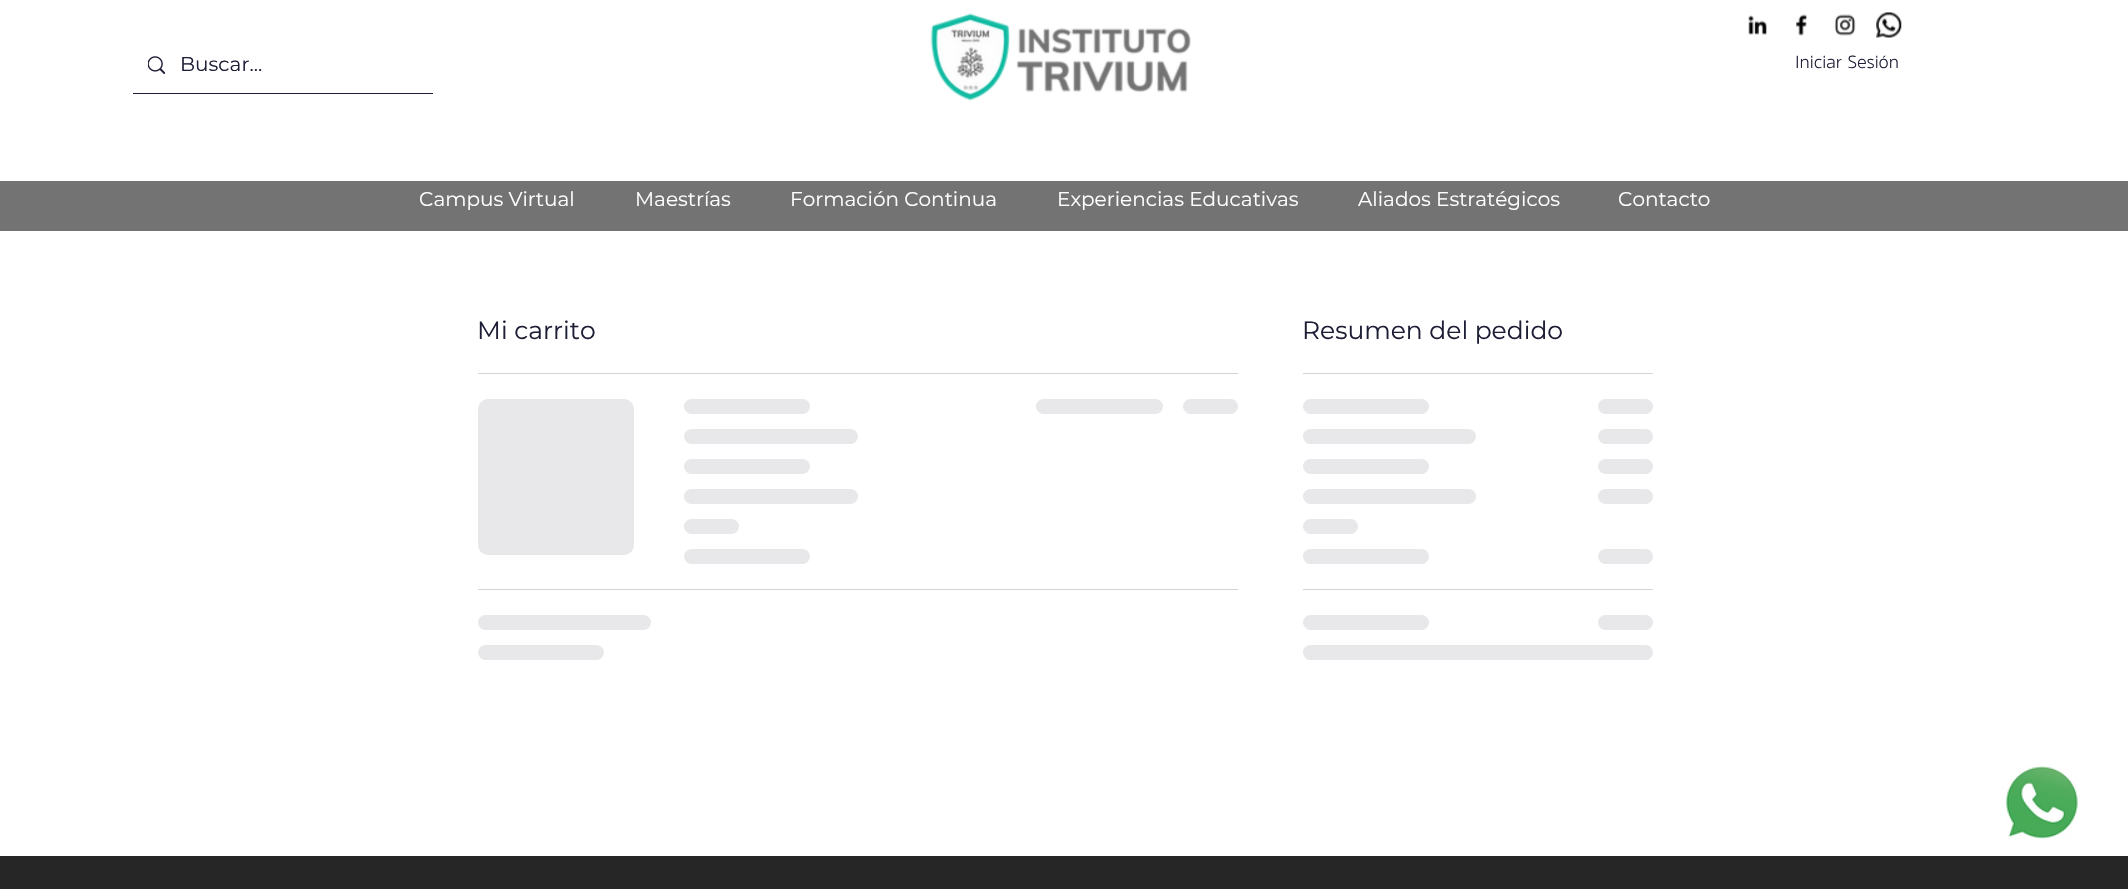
#include "include/core/SkBlurTypes.h"
#include "include/core/SkCanvas.h"
#include "include/core/SkData.h"
#include "include/core/SkFont.h"
#include "include/core/SkFontMgr.h"
#include "include/core/SkImage.h"
#include "include/core/SkMaskFilter.h"
#include "include/core/SkPaint.h"
#include "include/core/SkPathBuilder.h"
#include "include/core/SkTextBlob.h"
#include "include/effects/SkDashPathEffect.h"
#include "include/effects/SkGradientShader.h"
#include "include/utils/SkParsePath.h"

extern sk_sp<SkFontMgr> fontMgr;

void draw(SkCanvas* canvas) {
    SkPaint p;
    p.setAntiAlias(true);
    auto font = [&](const char* family, int weight, float size, bool italic = false) {
        SkFontStyle style(weight, SkFontStyle::kNormal_Width,
            italic ? SkFontStyle::kItalic_Slant : SkFontStyle::kUpright_Slant);
        SkFont result(fontMgr->matchFamilyStyle(family, style), size);
        result.setSubpixel(true);
        return result;
    };
    auto drawPhoto = [&](const char* path, float l, float t, float r, float b) {
        auto image = SkImages::DeferredFromEncodedData(SkData::MakeFromFileName(path));
        canvas->drawImageRect(image, SkRect::MakeLTRB(l, t, r, b), SkSamplingOptions());
    };
    canvas->clear(0xFFFFFFFF);
    p.setColor(0xFF1D1D36);
    canvas->drawRect(SkRect::MakeLTRB(133, 93, 433, 94), p);
    drawPhoto("media/1.png", 148, 56, 165, 74);
    auto font1 = font("Montserrat", 400, 20);
    canvas->drawString("Buscar...", 180, 71, font1, p);
    drawPhoto("media/2.png", 930, 13, 1191, 101);
    drawPhoto("media/3.png", 1748, 15, 1767, 35);
    drawPhoto("media/4.png", 1796, 14, 1807, 36);
    drawPhoto("media/5.png", 1834, 14, 1856, 36);
    drawPhoto("media/6.png", 1876, 12, 1902, 38);
    auto font2 = font("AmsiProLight", 300, 17.5f);
    canvas->drawString("Iniciar Sesión", 1795, 68, font2, p);
    p.setColor(0xFF737373);
    canvas->drawRect(SkRect::MakeLTRB(0, 181, 2128, 231), p);
    p.setColor(0xFFFFFFFF);
    {
        const struct { const char* s; float x, y; } items[] = {
            {"Campus Virtual", 419, 206},
            {"Maestrías", 635, 206},
            {"Formación Continua", 790, 206},
            {"Experiencias Educativas", 1057, 206},
            {"Aliados Estratégicos", 1358, 206},
            {"Contacto", 1618, 206},
        };
        for (auto [s, x, y] : items) {
            canvas->drawString(s, x, y, font1, p);
        }
    }
    p.setColor(0xFFD2D2D7);
    canvas->drawRect(SkRect::MakeLTRB(478, 373, 1238, 374), p);
    auto font3 = font("Montserrat", 400, 25);
    p.setColor(0xFF1D1D36);
    canvas->drawString("Mi carrito", 477, 339, font3, p);
    {
        const SkColor colors[] = {0xFFE8E8EB, 0xFFD2D2D7, 0xFFE8E8EB};
        const float stops[] = {0.25f, 0.37f, 0.63f};
        const SkPoint ends[] = {{478, 477}, {1103, 477}};
        p.setShader(SkGradientShader::MakeLinear(ends, colors, stops, 3, SkTileMode::kClamp));
        p.setAlpha(255);
    }
    canvas->drawRoundRect(SkRect::MakeLTRB(478, 399, 634, 555), 10, 10, p);
    {
        const SkColor colors[] = {0xFFE8E8EB, 0xFFD2D2D7, 0xFFE8E8EB};
        const float stops[] = {0.25f, 0.37f, 0.63f};
        const SkPoint ends[] = {{684, 406}, {1189, 406}};
        p.setShader(SkGradientShader::MakeLinear(ends, colors, stops, 3, SkTileMode::kClamp));
        p.setAlpha(255);
    }
    canvas->drawRoundRect(SkRect::MakeLTRB(684, 399, 810, 414), 7.5f, 7.5f, p);
    {
        const SkColor colors[] = {0xFFE8E8EB, 0xFFD2D2D7, 0xFFE8E8EB};
        const float stops[] = {0.25f, 0.37f, 0.63f};
        const SkPoint ends[] = {{684, 436}, {1379, 436}};
        p.setShader(SkGradientShader::MakeLinear(ends, colors, stops, 3, SkTileMode::kClamp));
        p.setAlpha(255);
    }
    canvas->drawRoundRect(SkRect::MakeLTRB(684, 429, 858, 444), 7.5f, 7.5f, p);
    {
        const SkColor colors[] = {0xFFE8E8EB, 0xFFD2D2D7, 0xFFE8E8EB};
        const float stops[] = {0.25f, 0.37f, 0.63f};
        const SkPoint ends[] = {{684, 466}, {1189, 466}};
        p.setShader(SkGradientShader::MakeLinear(ends, colors, stops, 3, SkTileMode::kClamp));
        p.setAlpha(255);
    }
    canvas->drawRoundRect(SkRect::MakeLTRB(684, 459, 810, 474), 7.5f, 7.5f, p);
    {
        const SkColor colors[] = {0xFFE8E8EB, 0xFFD2D2D7, 0xFFE8E8EB};
        const float stops[] = {0.25f, 0.37f, 0.63f};
        const SkPoint ends[] = {{684, 496}, {1379, 496}};
        p.setShader(SkGradientShader::MakeLinear(ends, colors, stops, 3, SkTileMode::kClamp));
        p.setAlpha(255);
    }
    canvas->drawRoundRect(SkRect::MakeLTRB(684, 489, 858, 504), 7.5f, 7.5f, p);
    {
        const SkColor colors[] = {0xFFE8E8EB, 0xFFD2D2D7, 0xFFE8E8EB};
        const float stops[] = {0.25f, 0.37f, 0.63f};
        const SkPoint ends[] = {{684, 526}, {904, 526}};
        p.setShader(SkGradientShader::MakeLinear(ends, colors, stops, 3, SkTileMode::kClamp));
        p.setAlpha(255);
    }
    canvas->drawRoundRect(SkRect::MakeLTRB(684, 519, 739, 534), 7.5f, 7.5f, p);
    {
        const SkColor colors[] = {0xFFE8E8EB, 0xFFD2D2D7, 0xFFE8E8EB};
        const float stops[] = {0.25f, 0.37f, 0.63f};
        const SkPoint ends[] = {{684, 556}, {1189, 556}};
        p.setShader(SkGradientShader::MakeLinear(ends, colors, stops, 3, SkTileMode::kClamp));
        p.setAlpha(255);
    }
    canvas->drawRoundRect(SkRect::MakeLTRB(684, 549, 810, 564), 7.5f, 7.5f, p);
    {
        const SkColor colors[] = {0xFFE8E8EB, 0xFFD2D2D7, 0xFFE8E8EB};
        const float stops[] = {0.25f, 0.37f, 0.63f};
        const SkPoint ends[] = {{1036, 406}, {1541, 406}};
        p.setShader(SkGradientShader::MakeLinear(ends, colors, stops, 3, SkTileMode::kClamp));
        p.setAlpha(255);
    }
    canvas->drawRoundRect(SkRect::MakeLTRB(1036, 399, 1163, 414), 7.5f, 7.5f, p);
    {
        const SkColor colors[] = {0xFFE8E8EB, 0xFFD2D2D7, 0xFFE8E8EB};
        const float stops[] = {0.25f, 0.37f, 0.63f};
        const SkPoint ends[] = {{1183, 406}, {1403, 406}};
        p.setShader(SkGradientShader::MakeLinear(ends, colors, stops, 3, SkTileMode::kClamp));
        p.setAlpha(255);
    }
    canvas->drawRoundRect(SkRect::MakeLTRB(1183, 399, 1238, 414), 7.5f, 7.5f, p);
    p.setShader(nullptr);
    p.setColor(0xFFD2D2D7);
    canvas->drawRect(SkRect::MakeLTRB(478, 589, 1238, 590), p);
    {
        const SkColor colors[] = {0xFFE8E8EB, 0xFFD2D2D7, 0xFFE8E8EB};
        const float stops[] = {0.25f, 0.37f, 0.63f};
        const SkPoint ends[] = {{478, 623}, {1173, 623}};
        p.setShader(SkGradientShader::MakeLinear(ends, colors, stops, 3, SkTileMode::kClamp));
        p.setAlpha(255);
    }
    canvas->drawRoundRect(SkRect::MakeLTRB(478, 615, 651, 630), 7.5f, 7.5f, p);
    {
        const SkColor colors[] = {0xFFE8E8EB, 0xFFD2D2D7, 0xFFE8E8EB};
        const float stops[] = {0.25f, 0.37f, 0.63f};
        const SkPoint ends[] = {{478, 653}, {983, 653}};
        p.setShader(SkGradientShader::MakeLinear(ends, colors, stops, 3, SkTileMode::kClamp));
        p.setAlpha(255);
    }
    canvas->drawRoundRect(SkRect::MakeLTRB(478, 645, 604, 660), 7.5f, 7.5f, p);
    p.setShader(nullptr);
    p.setColor(0xFFD2D2D7);
    canvas->drawRect(SkRect::MakeLTRB(1303, 373, 1653, 374), p);
    p.setColor(0xFF1D1D36);
    canvas->drawString("Resumen del pedido", 1302, 339, font3, p);
    {
        const SkColor colors[] = {0xFFE8E8EB, 0xFFD2D2D7, 0xFFE8E8EB};
        const float stops[] = {0.25f, 0.37f, 0.63f};
        const SkPoint ends[] = {{1303, 406}, {1808, 406}};
        p.setShader(SkGradientShader::MakeLinear(ends, colors, stops, 3, SkTileMode::kClamp));
        p.setAlpha(255);
    }
    canvas->drawRoundRect(SkRect::MakeLTRB(1303, 399, 1429, 414), 7.5f, 7.5f, p);
    {
        const SkColor colors[] = {0xFFE8E8EB, 0xFFD2D2D7, 0xFFE8E8EB};
        const float stops[] = {0.25f, 0.37f, 0.63f};
        const SkPoint ends[] = {{1598, 406}, {1818, 406}};
        p.setShader(SkGradientShader::MakeLinear(ends, colors, stops, 3, SkTileMode::kClamp));
        p.setAlpha(255);
    }
    canvas->drawRoundRect(SkRect::MakeLTRB(1598, 399, 1653, 414), 7.5f, 7.5f, p);
    {
        const SkColor colors[] = {0xFFE8E8EB, 0xFFD2D2D7, 0xFFE8E8EB};
        const float stops[] = {0.25f, 0.37f, 0.63f};
        const SkPoint ends[] = {{1303, 436}, {1998, 436}};
        p.setShader(SkGradientShader::MakeLinear(ends, colors, stops, 3, SkTileMode::kClamp));
        p.setAlpha(255);
    }
    canvas->drawRoundRect(SkRect::MakeLTRB(1303, 429, 1476, 444), 7.5f, 7.5f, p);
    {
        const SkColor colors[] = {0xFFE8E8EB, 0xFFD2D2D7, 0xFFE8E8EB};
        const float stops[] = {0.25f, 0.37f, 0.63f};
        const SkPoint ends[] = {{1598, 436}, {1818, 436}};
        p.setShader(SkGradientShader::MakeLinear(ends, colors, stops, 3, SkTileMode::kClamp));
        p.setAlpha(255);
    }
    canvas->drawRoundRect(SkRect::MakeLTRB(1598, 429, 1653, 444), 7.5f, 7.5f, p);
    {
        const SkColor colors[] = {0xFFE8E8EB, 0xFFD2D2D7, 0xFFE8E8EB};
        const float stops[] = {0.25f, 0.37f, 0.63f};
        const SkPoint ends[] = {{1303, 466}, {1808, 466}};
        p.setShader(SkGradientShader::MakeLinear(ends, colors, stops, 3, SkTileMode::kClamp));
        p.setAlpha(255);
    }
    canvas->drawRoundRect(SkRect::MakeLTRB(1303, 459, 1429, 474), 7.5f, 7.5f, p);
    {
        const SkColor colors[] = {0xFFE8E8EB, 0xFFD2D2D7, 0xFFE8E8EB};
        const float stops[] = {0.25f, 0.37f, 0.63f};
        const SkPoint ends[] = {{1598, 466}, {1818, 466}};
        p.setShader(SkGradientShader::MakeLinear(ends, colors, stops, 3, SkTileMode::kClamp));
        p.setAlpha(255);
    }
    canvas->drawRoundRect(SkRect::MakeLTRB(1598, 459, 1653, 474), 7.5f, 7.5f, p);
    {
        const SkColor colors[] = {0xFFE8E8EB, 0xFFD2D2D7, 0xFFE8E8EB};
        const float stops[] = {0.25f, 0.37f, 0.63f};
        const SkPoint ends[] = {{1303, 496}, {1998, 496}};
        p.setShader(SkGradientShader::MakeLinear(ends, colors, stops, 3, SkTileMode::kClamp));
        p.setAlpha(255);
    }
    canvas->drawRoundRect(SkRect::MakeLTRB(1303, 489, 1476, 504), 7.5f, 7.5f, p);
    {
        const SkColor colors[] = {0xFFE8E8EB, 0xFFD2D2D7, 0xFFE8E8EB};
        const float stops[] = {0.25f, 0.37f, 0.63f};
        const SkPoint ends[] = {{1598, 496}, {1818, 496}};
        p.setShader(SkGradientShader::MakeLinear(ends, colors, stops, 3, SkTileMode::kClamp));
        p.setAlpha(255);
    }
    canvas->drawRoundRect(SkRect::MakeLTRB(1598, 489, 1653, 504), 7.5f, 7.5f, p);
    {
        const SkColor colors[] = {0xFFE8E8EB, 0xFFD2D2D7, 0xFFE8E8EB};
        const float stops[] = {0.25f, 0.37f, 0.63f};
        const SkPoint ends[] = {{1303, 526}, {1523, 526}};
        p.setShader(SkGradientShader::MakeLinear(ends, colors, stops, 3, SkTileMode::kClamp));
        p.setAlpha(255);
    }
    canvas->drawRoundRect(SkRect::MakeLTRB(1303, 519, 1358, 534), 7.5f, 7.5f, p);
    {
        const SkColor colors[] = {0xFFE8E8EB, 0xFFD2D2D7, 0xFFE8E8EB};
        const float stops[] = {0.25f, 0.37f, 0.63f};
        const SkPoint ends[] = {{1303, 556}, {1808, 556}};
        p.setShader(SkGradientShader::MakeLinear(ends, colors, stops, 3, SkTileMode::kClamp));
        p.setAlpha(255);
    }
    canvas->drawRoundRect(SkRect::MakeLTRB(1303, 549, 1429, 564), 7.5f, 7.5f, p);
    {
        const SkColor colors[] = {0xFFE8E8EB, 0xFFD2D2D7, 0xFFE8E8EB};
        const float stops[] = {0.25f, 0.37f, 0.63f};
        const SkPoint ends[] = {{1598, 556}, {1818, 556}};
        p.setShader(SkGradientShader::MakeLinear(ends, colors, stops, 3, SkTileMode::kClamp));
        p.setAlpha(255);
    }
    canvas->drawRoundRect(SkRect::MakeLTRB(1598, 549, 1653, 564), 7.5f, 7.5f, p);
    p.setShader(nullptr);
    p.setColor(0xFFD2D2D7);
    canvas->drawRect(SkRect::MakeLTRB(1303, 589, 1653, 590), p);
    {
        const SkColor colors[] = {0xFFE8E8EB, 0xFFD2D2D7, 0xFFE8E8EB};
        const float stops[] = {0.25f, 0.37f, 0.63f};
        const SkPoint ends[] = {{1303, 623}, {1808, 623}};
        p.setShader(SkGradientShader::MakeLinear(ends, colors, stops, 3, SkTileMode::kClamp));
        p.setAlpha(255);
    }
    canvas->drawRoundRect(SkRect::MakeLTRB(1303, 615, 1429, 630), 7.5f, 7.5f, p);
    {
        const SkColor colors[] = {0xFFE8E8EB, 0xFFD2D2D7, 0xFFE8E8EB};
        const float stops[] = {0.25f, 0.37f, 0.63f};
        const SkPoint ends[] = {{1598, 623}, {1818, 623}};
        p.setShader(SkGradientShader::MakeLinear(ends, colors, stops, 3, SkTileMode::kClamp));
        p.setAlpha(255);
    }
    canvas->drawRoundRect(SkRect::MakeLTRB(1598, 615, 1653, 630), 7.5f, 7.5f, p);
    {
        const SkColor colors[] = {0xFFE8E8EB, 0xFFD2D2D7, 0xFFE8E8EB};
        const float stops[] = {0.25f, 0.37f, 0.63f};
        const SkPoint ends[] = {{1303, 653}, {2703, 653}};
        p.setShader(SkGradientShader::MakeLinear(ends, colors, stops, 3, SkTileMode::kClamp));
        p.setAlpha(255);
    }
    canvas->drawRoundRect(SkRect::MakeLTRB(1303, 645, 1653, 660), 7.5f, 7.5f, p);
    drawPhoto("media/7.png", 2006, 766, 2078, 839);
    p.setShader(nullptr);
    p.setColor(0xFF262626);
    canvas->drawRect(SkRect::MakeLTRB(0, 856, 2128, 889), p);
}
